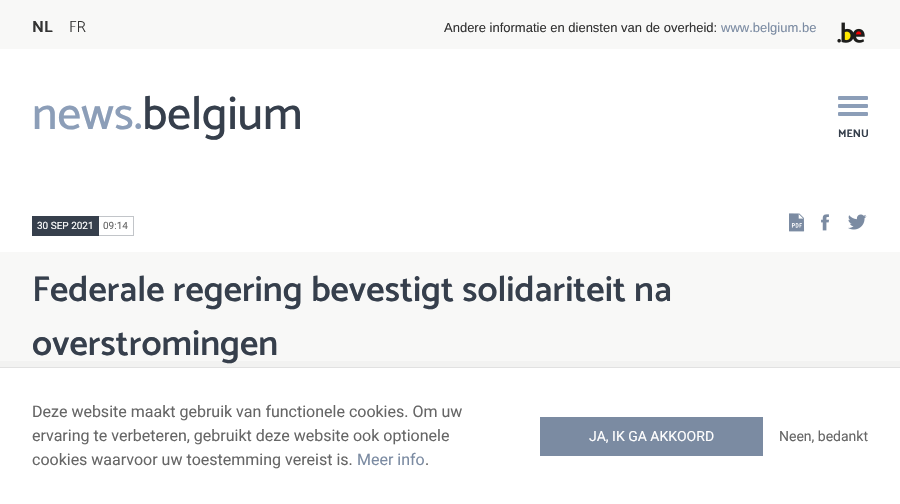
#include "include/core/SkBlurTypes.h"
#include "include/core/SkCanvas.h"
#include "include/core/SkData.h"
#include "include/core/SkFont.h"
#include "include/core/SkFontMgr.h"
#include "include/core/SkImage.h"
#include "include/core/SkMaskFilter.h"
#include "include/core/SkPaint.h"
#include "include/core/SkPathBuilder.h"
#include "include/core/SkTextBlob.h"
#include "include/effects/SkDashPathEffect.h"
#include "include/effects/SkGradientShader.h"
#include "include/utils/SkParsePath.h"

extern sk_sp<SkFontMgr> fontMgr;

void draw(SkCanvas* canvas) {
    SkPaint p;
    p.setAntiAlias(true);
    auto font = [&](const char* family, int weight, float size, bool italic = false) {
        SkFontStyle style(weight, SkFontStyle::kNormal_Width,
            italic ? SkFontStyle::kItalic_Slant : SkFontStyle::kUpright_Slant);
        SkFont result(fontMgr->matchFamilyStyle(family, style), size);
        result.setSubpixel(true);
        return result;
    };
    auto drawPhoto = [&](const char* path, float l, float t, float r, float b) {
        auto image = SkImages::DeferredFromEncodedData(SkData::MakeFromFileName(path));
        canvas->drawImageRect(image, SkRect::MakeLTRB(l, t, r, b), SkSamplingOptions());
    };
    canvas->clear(0xFFF8F8F7);
    auto font1 = font("Catamaran", 700, 16);
    p.setColor(0xFF333333);
    canvas->drawString("NL", 32, 32, font1, p);
    auto font2 = font("Catamaran", 300, 16);
    canvas->drawString("FR", 69, 32, font2, p);
    auto font3 = font("Liberation Sans", 400, 13);
    canvas->drawString("Andere informatie en diensten van de overheid:", 444, 32, font3, p);
    p.setColor(0xFF7B8BA2);
    canvas->drawString("www.belgium.be", 721, 32, font3, p);
    drawPhoto("media/1.png", 837, 22, 865, 43);
    p.setColor(0xFFFFFFFF);
    canvas->drawRect(SkRect::MakeLTRB(0, 49, 900, 252), p);
    auto font4 = font("Catamaran", 500, 47);
    p.setColor(0xFF8C9EB8);
    canvas->drawString("news.", 32, 129, font4, p);
    p.setColor(0xFF363F4C);
    canvas->drawString("belgium", 142, 129, font4, p);
    p.setColor(0xFF8C9EB8);
    canvas->drawRoundRect(SkRect::MakeLTRB(838, 96, 868, 100), 1, 1, p);
    canvas->drawRoundRect(SkRect::MakeLTRB(838, 104, 868, 108), 1, 1, p);
    canvas->drawRoundRect(SkRect::MakeLTRB(838, 112, 868, 116), 1, 1, p);
    auto font5 = font("Catamaran", 700, 11);
    p.setColor(0xFF363F4C);
    canvas->drawString("MENU", 838, 137, font5, p);
    canvas->drawRect(SkRect::MakeLTRB(32, 216, 99, 236), p);
    auto font6 = font("Roboto", 400, 10);
    p.setColor(0xFFFFFFFF);
    canvas->drawString("30 SEP 2021", 37, 229, font6, p);
    {
        const struct { float l, t, r, b; SkColor color; } items[] = {
            {99, 216, 134, 217, 0xFFC2C5C9},
            {133, 216, 134, 236, 0xFFC2C5C9},
            {99, 235, 134, 236, 0xFFC2C5C9},
        };
        for (auto [l, t, r, b, color] : items) {
            p.setColor(color);
            canvas->drawRect(SkRect::MakeLTRB(l, t, r, b), p);
        }
    }
    p.setColor(0xFF666666);
    canvas->drawString("09:14", 103, 229, font6, p);
    drawPhoto("media/2.png", 789, 213, 805, 232);
    drawPhoto("media/3.png", 821, 214, 829, 231);
    drawPhoto("media/4.png", 848, 214, 867, 230);
    auto font7 = font("Catamaran", 600, 36);
    p.setColor(0xFF363F4C);
    canvas->drawString("Federale regering bevestigt solidariteit na", 32, 301, font7, p);
    canvas->drawString("overstromingen", 32, 355, font7, p);
    p.setColor(0x08333333);
    canvas->drawPath(SkPathBuilder().moveTo(-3, 361).lineTo(-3, 504).lineTo(0, 504).lineTo(0, 367).lineTo(900, 367).lineTo(900, 504).lineTo(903, 504).lineTo(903, 361).close().detach(), p);
    p.setColor(0xFFFFFFFF);
    canvas->drawRect(SkRect::MakeLTRB(0, 368, 900, 504), p);
    p.setColor(0xFFE1E1E1);
    canvas->drawRect(SkRect::MakeLTRB(0, 367, 900, 368), p);
    auto font8 = font("Roboto", 400, 16);
    p.setColor(0xFF666666);
    {
        const struct { const char* s; float x, y; } items[] = {
            {"Deze website maakt gebruik van functionele cookies. Om uw", 32, 417},
            {"ervaring te verbeteren, gebruikt deze website ook optionele", 32, 441},
            {"cookies waarvoor uw toestemming vereist is.", 32, 465},
        };
        for (auto [s, x, y] : items) {
            canvas->drawString(s, x, y, font8, p);
        }
    }
    p.setColor(0xFF7B8BA2);
    canvas->drawString("Meer info", 357, 465, font8, p);
    p.setColor(0xFF666666);
    canvas->drawString(".", 425, 465, font8, p);
    p.setColor(0xFF7B8BA2);
    canvas->drawRect(SkRect::MakeLTRB(540, 417, 763, 456), p);
    auto font9 = font("Roboto", 400, 14);
    p.setColor(0xFFFFFFFF);
    canvas->drawString("JA, IK GA AKKOORD", 589, 441, font9, p);
    p.setColor(0xFF666666);
    canvas->drawString("Neen, bedankt", 779, 441, font9, p);
}
